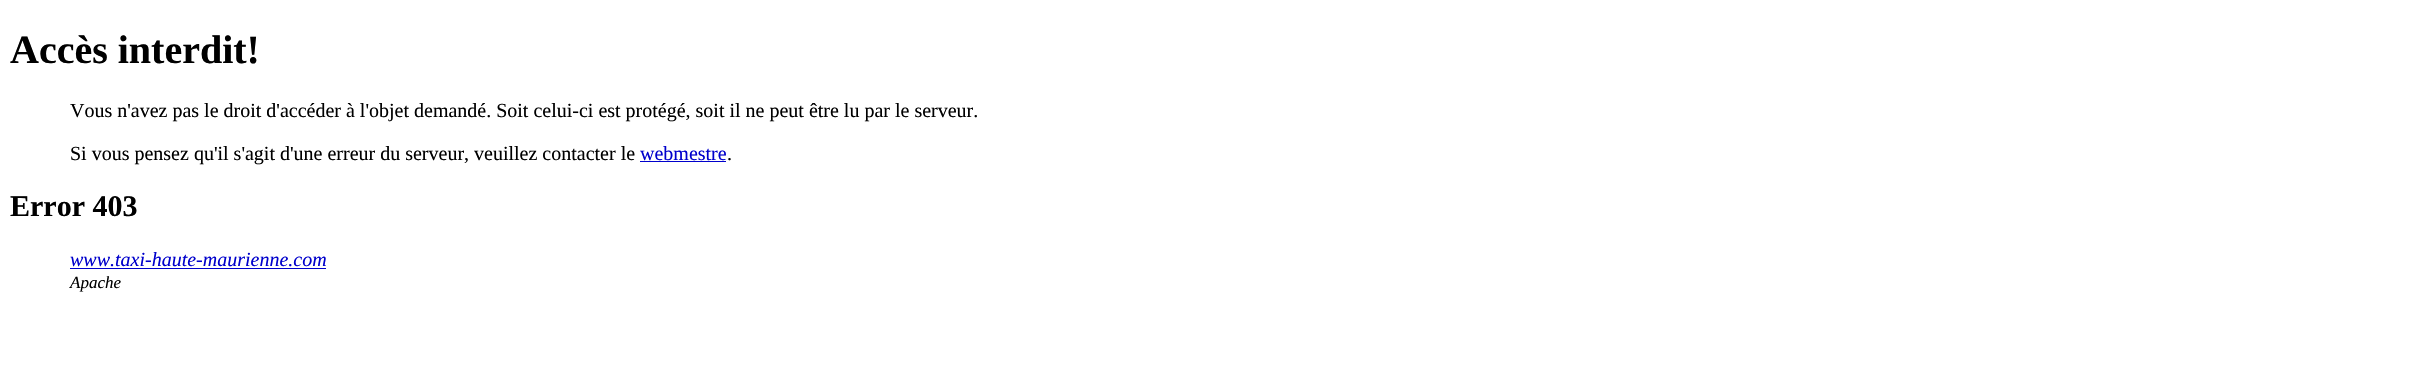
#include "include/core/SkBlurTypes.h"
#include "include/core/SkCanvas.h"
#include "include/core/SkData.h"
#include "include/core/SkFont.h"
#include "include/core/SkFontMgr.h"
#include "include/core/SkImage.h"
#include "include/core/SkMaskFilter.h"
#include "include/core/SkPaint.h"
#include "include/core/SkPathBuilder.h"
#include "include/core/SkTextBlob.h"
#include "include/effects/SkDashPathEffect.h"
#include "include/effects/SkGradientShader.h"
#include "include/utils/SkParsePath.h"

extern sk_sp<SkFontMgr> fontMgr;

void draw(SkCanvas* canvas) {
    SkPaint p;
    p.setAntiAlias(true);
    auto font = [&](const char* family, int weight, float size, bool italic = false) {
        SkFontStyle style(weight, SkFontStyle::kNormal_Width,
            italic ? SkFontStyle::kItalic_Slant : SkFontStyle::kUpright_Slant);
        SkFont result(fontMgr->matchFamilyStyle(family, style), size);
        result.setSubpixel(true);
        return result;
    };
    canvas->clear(0xFFFFFFFF);
    auto font1 = font("Liberation Serif", 700, 40);
    p.setColor(0xFF000000);
    canvas->drawString("Accès interdit!", 10, 63, font1, p);
    auto font2 = font("Liberation Serif", 400, 20);
    canvas->drawString("Vous n'avez pas le droit d'accéder à l'objet demandé. Soit celui-ci est protégé, soit il ne peut être lu par le serveur.", 70, 117, font2, p);
    canvas->drawString("Si vous pensez qu'il s'agit d'une erreur du serveur, veuillez contacter le", 70, 160, font2, p);
    p.setColor(0xFF0000CC);
    canvas->drawString("webmestre", 640, 160, font2, p);
    canvas->drawRect(SkRect::MakeLTRB(640, 161, 726, 162), p);
    p.setColor(0xFF000000);
    canvas->drawString(".", 727, 160, font2, p);
    auto font3 = font("Liberation Serif", 700, 30);
    canvas->drawString("Error 403", 10, 216, font3, p);
    auto font4 = font("Liberation Serif", 400, 20, true);
    p.setColor(0xFF0000CC);
    canvas->drawString("www.taxi-haute-maurienne.com", 70, 266, font4, p);
    canvas->drawRect(SkRect::MakeLTRB(70, 268, 326, 269), p);
    auto font5 = font("Liberation Serif", 400, 17, true);
    p.setColor(0xFF000000);
    canvas->drawString("Apache", 70, 288, font5, p);
}
